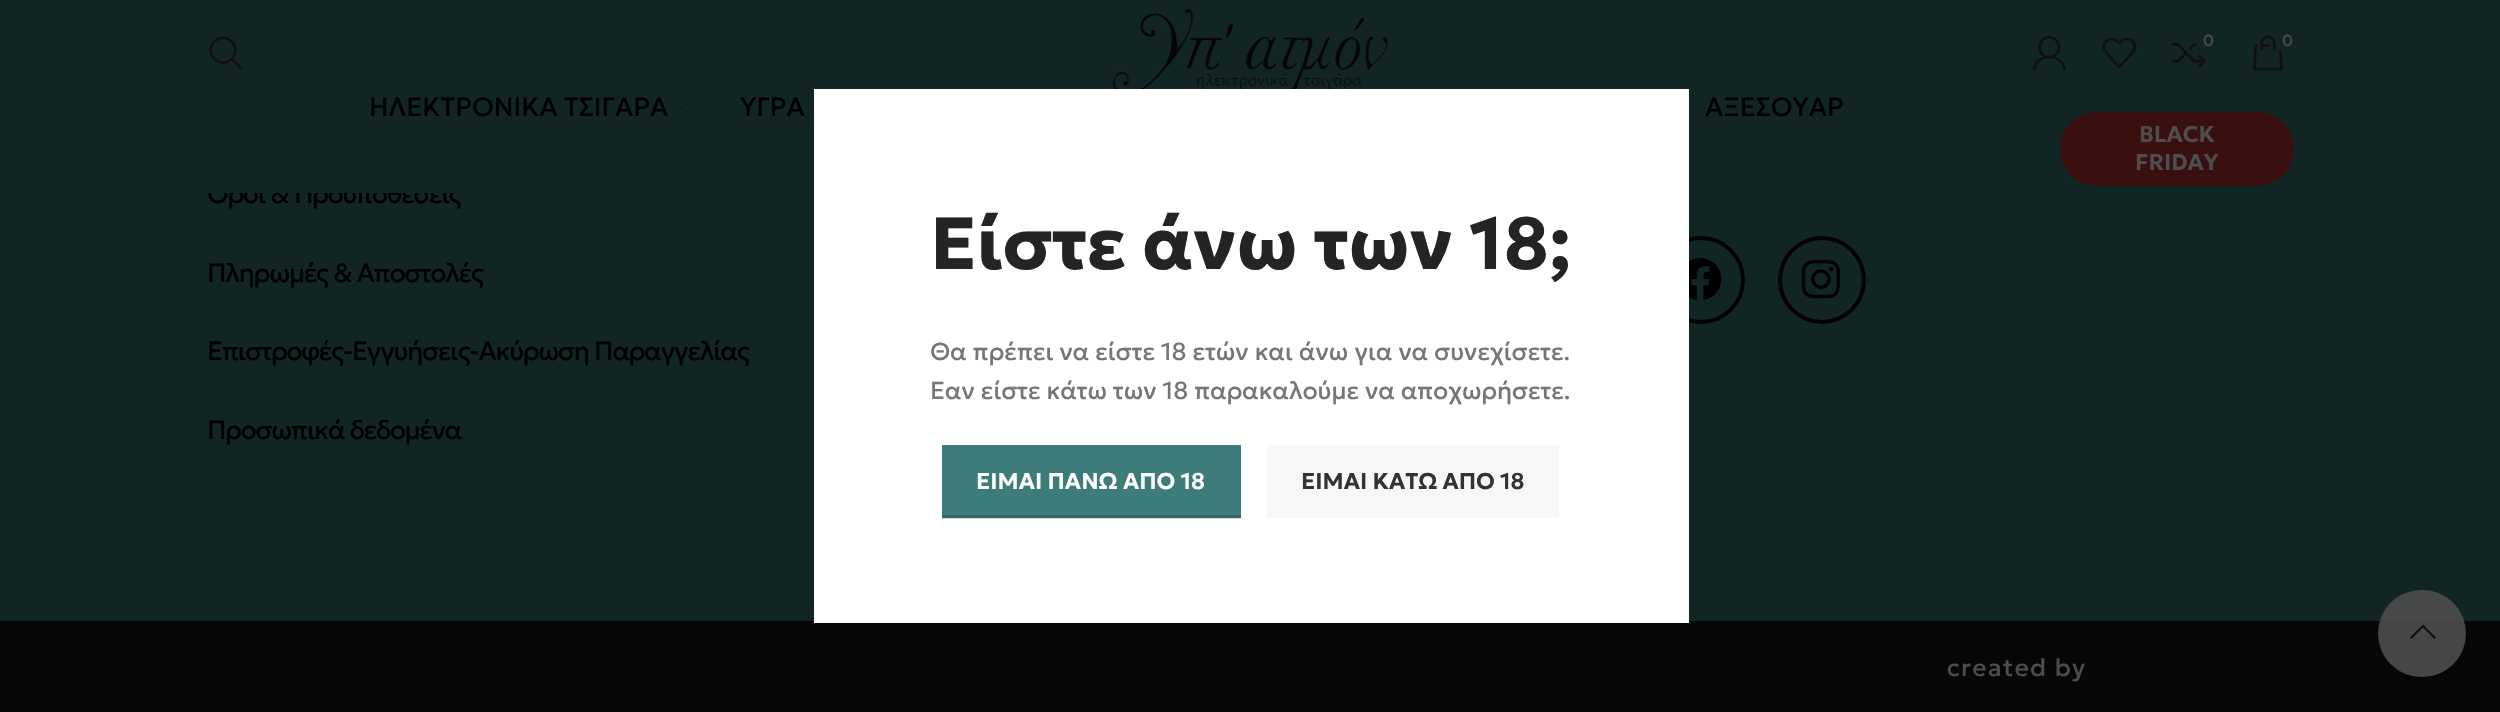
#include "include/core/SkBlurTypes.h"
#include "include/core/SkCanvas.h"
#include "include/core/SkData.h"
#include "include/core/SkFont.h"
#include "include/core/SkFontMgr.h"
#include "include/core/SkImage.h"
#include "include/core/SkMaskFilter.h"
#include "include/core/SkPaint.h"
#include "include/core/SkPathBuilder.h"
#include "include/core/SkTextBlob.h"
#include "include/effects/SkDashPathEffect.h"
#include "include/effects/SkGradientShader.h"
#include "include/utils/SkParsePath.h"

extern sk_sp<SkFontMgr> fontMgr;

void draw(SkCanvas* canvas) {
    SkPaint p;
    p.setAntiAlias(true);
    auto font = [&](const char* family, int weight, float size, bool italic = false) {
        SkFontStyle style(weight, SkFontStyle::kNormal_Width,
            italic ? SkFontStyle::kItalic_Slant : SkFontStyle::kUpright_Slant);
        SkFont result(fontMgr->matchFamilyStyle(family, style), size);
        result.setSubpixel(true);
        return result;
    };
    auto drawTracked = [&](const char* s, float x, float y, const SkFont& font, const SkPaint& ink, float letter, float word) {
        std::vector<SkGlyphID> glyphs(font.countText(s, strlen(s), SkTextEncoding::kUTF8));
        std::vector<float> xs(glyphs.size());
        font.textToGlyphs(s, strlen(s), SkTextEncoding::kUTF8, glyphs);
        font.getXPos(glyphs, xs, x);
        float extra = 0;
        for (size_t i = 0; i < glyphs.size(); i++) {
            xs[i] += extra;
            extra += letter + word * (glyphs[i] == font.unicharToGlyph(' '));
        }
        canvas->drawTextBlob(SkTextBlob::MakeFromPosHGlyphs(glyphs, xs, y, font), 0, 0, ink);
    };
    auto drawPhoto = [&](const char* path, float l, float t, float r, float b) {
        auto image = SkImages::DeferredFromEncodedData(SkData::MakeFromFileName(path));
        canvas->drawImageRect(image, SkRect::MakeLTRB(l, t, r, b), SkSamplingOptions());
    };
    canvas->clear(0xFF122525);
    drawPhoto("media/1.png", 209, 36, 242, 69);
    drawPhoto("media/2.png", 1112, 8, 1389, 89);
    drawPhoto("media/3.png", 2032, 36, 2066, 70);
    drawPhoto("media/4.png", 2102, 37, 2137, 69);
    drawPhoto("media/5.png", 2171, 43, 2206, 69);
    p.setColor(0xFF122525);
    canvas->drawCircle(2209.5f, 39.5f, 13.5f, p);
    auto font1 = font("Geologica", 400, 16);
    p.setColor(0xFF4D4D4D);
    canvas->drawString("0", 2203, 46, font1, p);
    drawPhoto("media/6.png", 2253, 35, 2283, 71);
    p.setColor(0xFF122525);
    canvas->drawRoundRect(SkRect::MakeLTRB(2275, 26, 2301, 53), 13, 13, p);
    p.setColor(0xFF4D4D4D);
    canvas->drawString("0", 2282, 46, font1, p);
    auto font2 = font("Geologica", 400, 26.25f);
    p.setColor(0xFF000000);
    drawTracked("Όροι & Προϋποθέσεις", 207, 203, font2, p, -1.2f, 0);
    p.setColor(0xFF122525);
    canvas->drawRect(SkRect::MakeLTRB(204, 183, 462, 193), p);
    p.setColor(0xFF000000);
    canvas->drawString("ΗΛΕΚΤΡΟΝΙΚΑ ΤΣΙΓΑΡΑ", 369, 116, font2, p);
    drawPhoto("media/7.png", 675, 103, 688, 110);
    canvas->drawString("ΥΓΡΑ", 740, 116, font2, p);
    canvas->drawString("ΑΞΕΣΟΥΑΡ", 1705, 116, font2, p);
    drawPhoto("media/8.png", 1850, 103, 1862, 110);
    p.setColor(0xFF390F0F);
    canvas->drawRoundRect(SkRect::MakeLTRB(2060, 112, 2294, 186), 37, 37, p);
    auto font3 = font("Geologica", 600, 22.75f);
    p.setColor(0xFF4D4D4D);
    canvas->drawString("BLACK", 2139, 142, font3, p);
    canvas->drawString("FRIDAY", 2135, 170, font3, p);
    p.setColor(0xFF000000);
    {
        const struct { const char* s; float x, y; } items[] = {
            {"Πληρωμές & Αποστολές", 207, 282},
            {"Επιστροφές-Εγγυήσεις-Ακύρωση Παραγγελίας", 207, 360},
            {"Προσωπικά δεδομένα", 207, 439},
        };
        for (auto [s, x, y] : items) {
            drawTracked(s, x, y, font2, p, -1.2f, 0);
        }
    }
    p.setStyle(SkPaint::kStroke_Style);
    p.setStrokeWidth(4);
    canvas->drawCircle(1701, 280, 42, p);
    drawPhoto("media/9.png", 1689, 257, 1722, 300);
    canvas->drawCircle(1822, 280, 42, p);
    drawPhoto("media/10.png", 1801, 260, 1840, 299);
    p.setStyle(SkPaint::kFill_Style);
    p.setColor(0xFF070707);
    canvas->drawRect(SkRect::MakeLTRB(0, 621, 2500, 712), p);
    auto font4 = font("Geologica", 400, 24.5f);
    p.setColor(0xFF4D4D4D);
    drawTracked("created by", 1947, 676, font4, p, 1.4f, 0);
    p.setColor(0xFFFFFFFF);
    canvas->drawRect(SkRect::MakeLTRB(814, 89, 1689, 623), p);
    p.setColor(0xFFD9D9D9);
    canvas->drawRect(SkRect::MakeLTRB(942, 518, 1241, 519), p);
    auto font5 = font("Geologica", 700, 73.5f);
    p.setColor(0xFF242424);
    canvas->drawString("Είστε άνω των 18;", 930, 269, font5, p);
    p.setColor(0xFF767676);
    canvas->drawString("Θα πρέπει να είστε 18 ετών και άνω για να συνεχίσετε.", 930, 360, font4, p);
    canvas->drawString("Εαν είστε κάτω των 18 παρακαλούμε να αποχωρήσετε.", 930, 399, font4, p);
    p.setColor(0xFF3D7C7B);
    canvas->drawRect(SkRect::MakeLTRB(942, 445, 1241, 515), p);
    p.setColor(0xFF346969);
    canvas->drawRect(SkRect::MakeLTRB(942, 515, 1241, 518), p);
    p.setColor(0xFFFFFFFF);
    canvas->drawString("ΕΙΜΑΙ ΠΑΝΩ ΑΠΟ 18", 976, 489, font3, p);
    p.setColor(0xFFF7F7F7);
    canvas->drawRect(SkRect::MakeLTRB(1267, 445, 1559, 518), p);
    p.setColor(0xFF333333);
    canvas->drawString("ΕΙΜΑΙ ΚΑΤΩ ΑΠΟ 18", 1301, 489, font3, p);
    p.setColor(0xE64D4D4D);
    canvas->drawRoundRect(SkRect::MakeLTRB(2378, 590, 2466, 677), 43.5f, 43.5f, p);
    p.setColor(0xFF0F0F0F);
    canvas->drawPath(SkPathBuilder().moveTo(2434.5f, 639).lineTo(2436, 637.5f).lineTo(2423, 624.5f).lineTo(2410, 637.5f).lineTo(2411.5f, 639).lineTo(2423, 627.5f).close().detach(), p);
}
